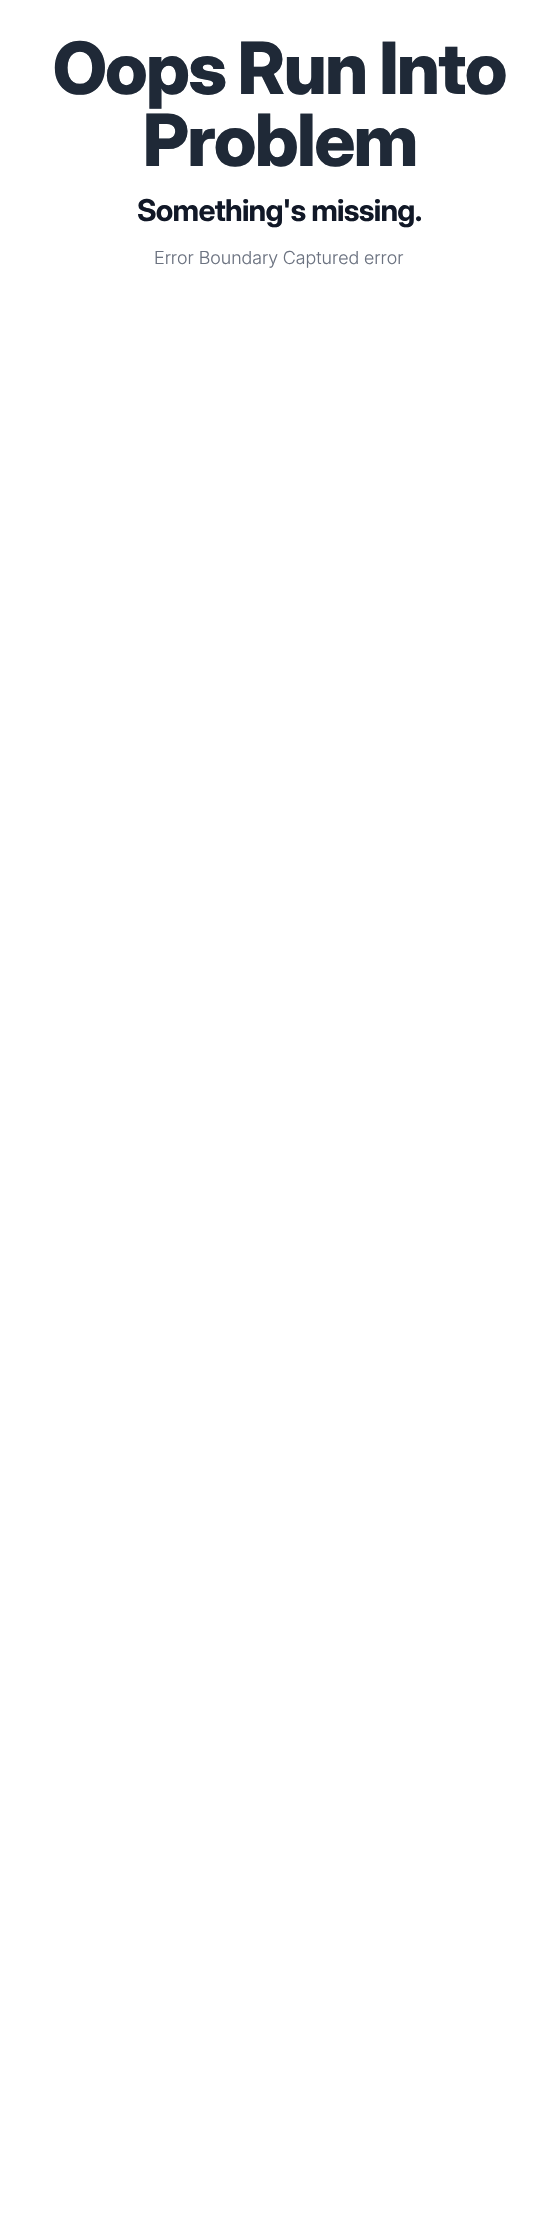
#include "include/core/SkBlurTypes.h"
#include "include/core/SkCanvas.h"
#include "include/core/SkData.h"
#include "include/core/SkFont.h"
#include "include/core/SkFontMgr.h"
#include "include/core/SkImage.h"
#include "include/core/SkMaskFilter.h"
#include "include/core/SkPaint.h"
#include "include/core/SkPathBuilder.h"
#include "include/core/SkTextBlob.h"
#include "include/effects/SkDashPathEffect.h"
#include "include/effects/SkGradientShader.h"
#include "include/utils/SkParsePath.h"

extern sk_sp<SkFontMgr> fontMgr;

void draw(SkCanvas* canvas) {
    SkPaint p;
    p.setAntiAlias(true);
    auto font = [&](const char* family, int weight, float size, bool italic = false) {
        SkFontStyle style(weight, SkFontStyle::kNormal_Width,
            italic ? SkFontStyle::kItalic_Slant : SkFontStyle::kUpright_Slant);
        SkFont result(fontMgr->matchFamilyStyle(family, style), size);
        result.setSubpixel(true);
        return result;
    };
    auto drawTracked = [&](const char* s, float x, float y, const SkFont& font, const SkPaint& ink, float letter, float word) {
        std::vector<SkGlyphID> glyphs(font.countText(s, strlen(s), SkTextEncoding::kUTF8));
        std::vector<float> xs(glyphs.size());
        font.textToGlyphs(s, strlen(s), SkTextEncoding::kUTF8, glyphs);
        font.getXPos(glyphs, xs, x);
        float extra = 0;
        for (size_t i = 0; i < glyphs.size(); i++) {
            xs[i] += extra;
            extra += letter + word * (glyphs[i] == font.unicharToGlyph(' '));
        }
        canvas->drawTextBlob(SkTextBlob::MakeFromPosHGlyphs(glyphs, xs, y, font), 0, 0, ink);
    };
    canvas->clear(0xFFFFFFFF);
    auto font1 = font("Inter", 800, 72);
    p.setColor(0xFF1F2937);
    drawTracked("Oops Run Into", 53, 94, font1, p, -1.75f, 0);
    drawTracked("Problem", 143, 166, font1, p, -1.75f, 0);
    auto font2 = font("Inter", 700, 30);
    p.setColor(0xFF111827);
    drawTracked("Something's missing.", 137, 221, font2, p, -0.75f, 0);
    auto font3 = font("Inter", 300, 18);
    p.setColor(0xFF6B7280);
    canvas->drawString("Error Boundary Captured error", 154, 264, font3, p);
}
